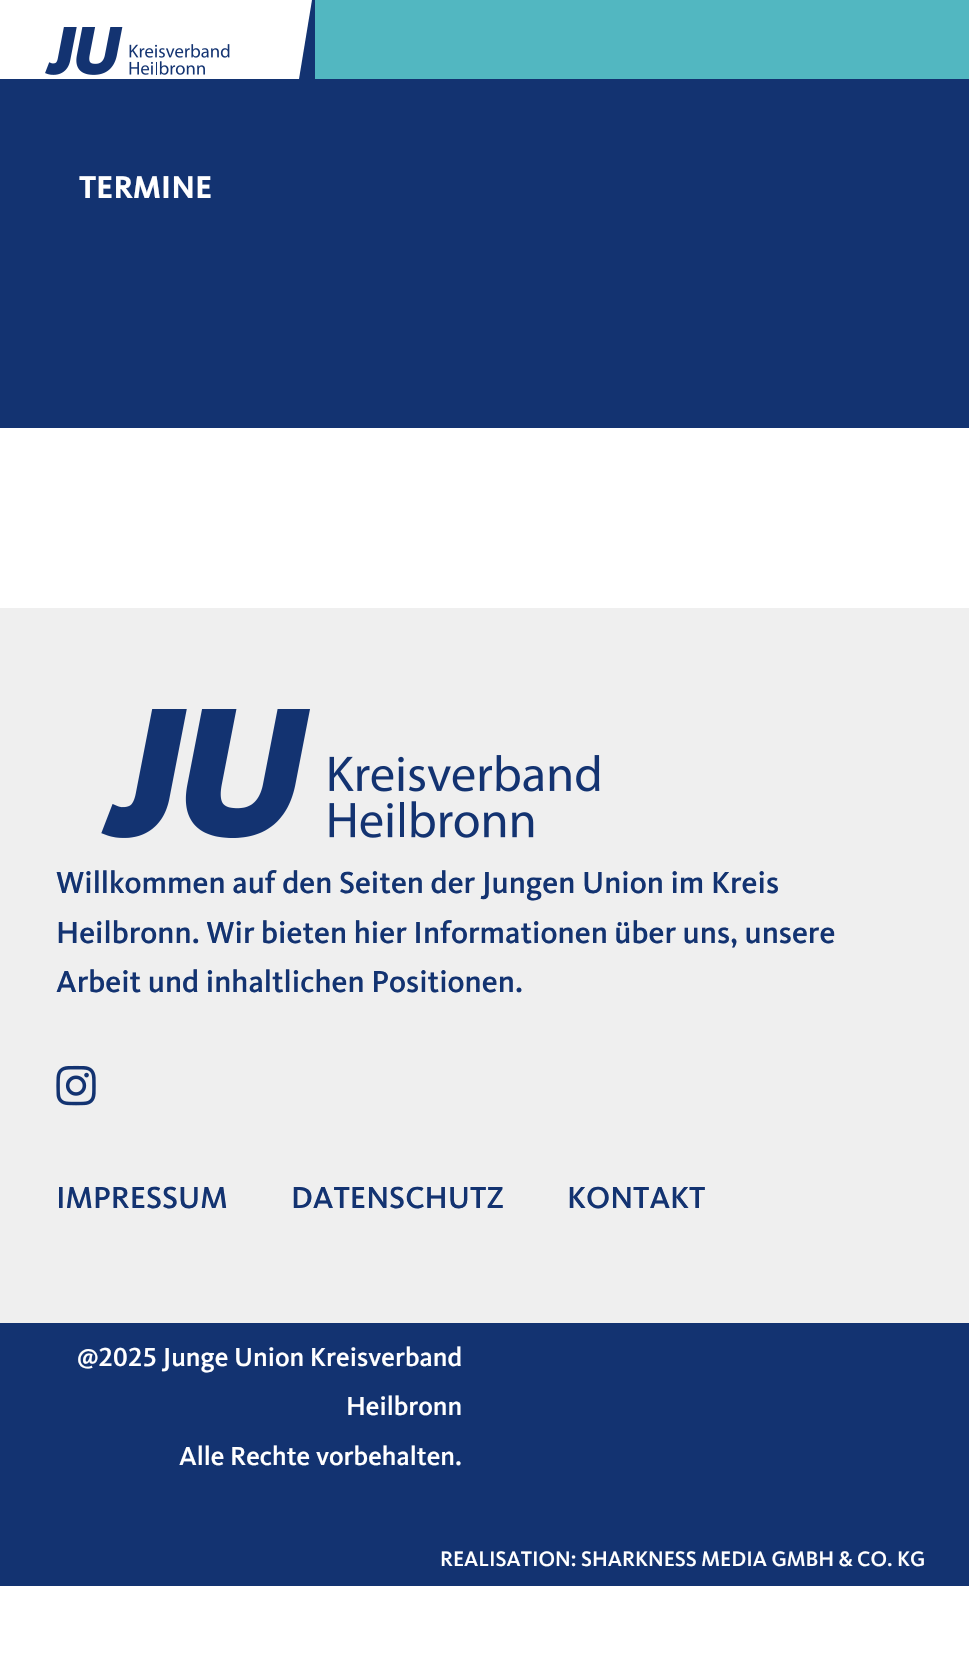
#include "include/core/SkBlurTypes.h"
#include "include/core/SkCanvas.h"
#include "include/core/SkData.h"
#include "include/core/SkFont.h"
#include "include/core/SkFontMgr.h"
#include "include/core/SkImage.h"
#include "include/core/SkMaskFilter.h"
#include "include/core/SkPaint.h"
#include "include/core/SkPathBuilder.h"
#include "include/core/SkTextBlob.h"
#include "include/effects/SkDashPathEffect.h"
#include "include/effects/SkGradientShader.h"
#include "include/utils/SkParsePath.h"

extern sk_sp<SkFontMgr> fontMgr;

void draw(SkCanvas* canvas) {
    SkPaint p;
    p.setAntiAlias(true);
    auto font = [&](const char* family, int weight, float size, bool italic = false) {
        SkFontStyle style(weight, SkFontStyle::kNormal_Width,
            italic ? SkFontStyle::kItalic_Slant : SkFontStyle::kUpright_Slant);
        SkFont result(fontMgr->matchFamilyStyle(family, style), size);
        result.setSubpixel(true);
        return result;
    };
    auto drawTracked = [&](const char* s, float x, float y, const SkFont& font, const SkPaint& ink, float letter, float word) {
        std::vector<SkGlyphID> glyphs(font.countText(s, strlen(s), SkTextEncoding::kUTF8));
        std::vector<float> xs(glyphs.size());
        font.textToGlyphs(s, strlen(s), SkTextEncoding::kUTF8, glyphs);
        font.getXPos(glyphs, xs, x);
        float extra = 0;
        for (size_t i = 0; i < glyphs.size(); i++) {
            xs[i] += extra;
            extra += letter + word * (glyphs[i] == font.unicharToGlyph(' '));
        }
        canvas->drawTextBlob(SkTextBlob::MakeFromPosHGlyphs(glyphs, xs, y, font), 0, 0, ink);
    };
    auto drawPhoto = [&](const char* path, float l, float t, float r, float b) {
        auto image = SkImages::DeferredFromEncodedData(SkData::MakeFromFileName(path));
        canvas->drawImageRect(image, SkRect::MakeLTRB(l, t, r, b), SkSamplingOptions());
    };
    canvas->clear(0xFFFFFFFF);
    drawPhoto("media/1.png", 45, 27, 230, 75);
    p.setColor(0xFF133371);
    canvas->drawPath(SkPathBuilder().moveTo(315, 0).lineTo(312, 0).lineTo(299, 79).lineTo(315, 79).close().detach(), p);
    p.setColor(0xFF52B7C1);
    canvas->drawRect(SkRect::MakeLTRB(315, 0, 969, 79), p);
    p.setColor(0xFF133371);
    canvas->drawRect(SkRect::MakeLTRB(0, 79, 969, 428), p);
    auto font1 = font("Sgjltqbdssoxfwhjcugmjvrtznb", 700, 31.5f);
    p.setColor(0xFFFFFFFF);
    drawTracked("TERMINE", 79, 198, font1, p, 0.75f, 0);
    p.setColor(0xFFEFEFEF);
    canvas->drawRect(SkRect::MakeLTRB(0, 608, 969, 1323), p);
    drawPhoto("media/2.png", 101, 709, 600, 838);
    auto font2 = font("Sgjltqbdssoxfwhjcugmjvrtznb", 500, 31.5f);
    p.setColor(0xFF133371);
    {
        const struct { const char* s; float x, y; } items[] = {
            {"Willkommen auf den Seiten der Jungen Union im Kreis", 56, 893},
            {"Heilbronn. Wir bieten hier Informationen über uns, unsere", 56, 943},
            {"Arbeit und inhaltlichen Positionen.", 56, 992},
        };
        for (auto [s, x, y] : items) {
            canvas->drawString(s, x, y, font2, p);
        }
    }
    drawPhoto("media/3.png", 56, 1065, 96, 1106);
    {
        const struct { const char* s; float x, y; } items[] = {
            {"IMPRESSUM", 56, 1208},
            {"DATENSCHUTZ", 291, 1208},
            {"KONTAKT", 567, 1208},
        };
        for (auto [s, x, y] : items) {
            canvas->drawString(s, x, y, font2, p);
        }
    }
    canvas->drawRect(SkRect::MakeLTRB(0, 1323, 969, 1586), p);
    auto font3 = font("Sgjltqbdssoxfwhjcugmjvrtznb", 500, 27);
    p.setColor(0xFFFFFFFF);
    {
        const struct { const char* s; float x, y; } items[] = {
            {"@2025 Junge Union Kreisverband", 77, 1366},
            {"Heilbronn", 346, 1415},
            {"Alle Rechte vorbehalten.", 179, 1465},
        };
        for (auto [s, x, y] : items) {
            canvas->drawString(s, x, y, font3, p);
        }
    }
    auto font4 = font("Sgjltqbdssoxfwhjcugmjvrtznb", 500, 21.6f);
    canvas->drawString("REALISATION: SHARKNESS MEDIA GMBH & CO. KG", 440, 1566, font4, p);
}
